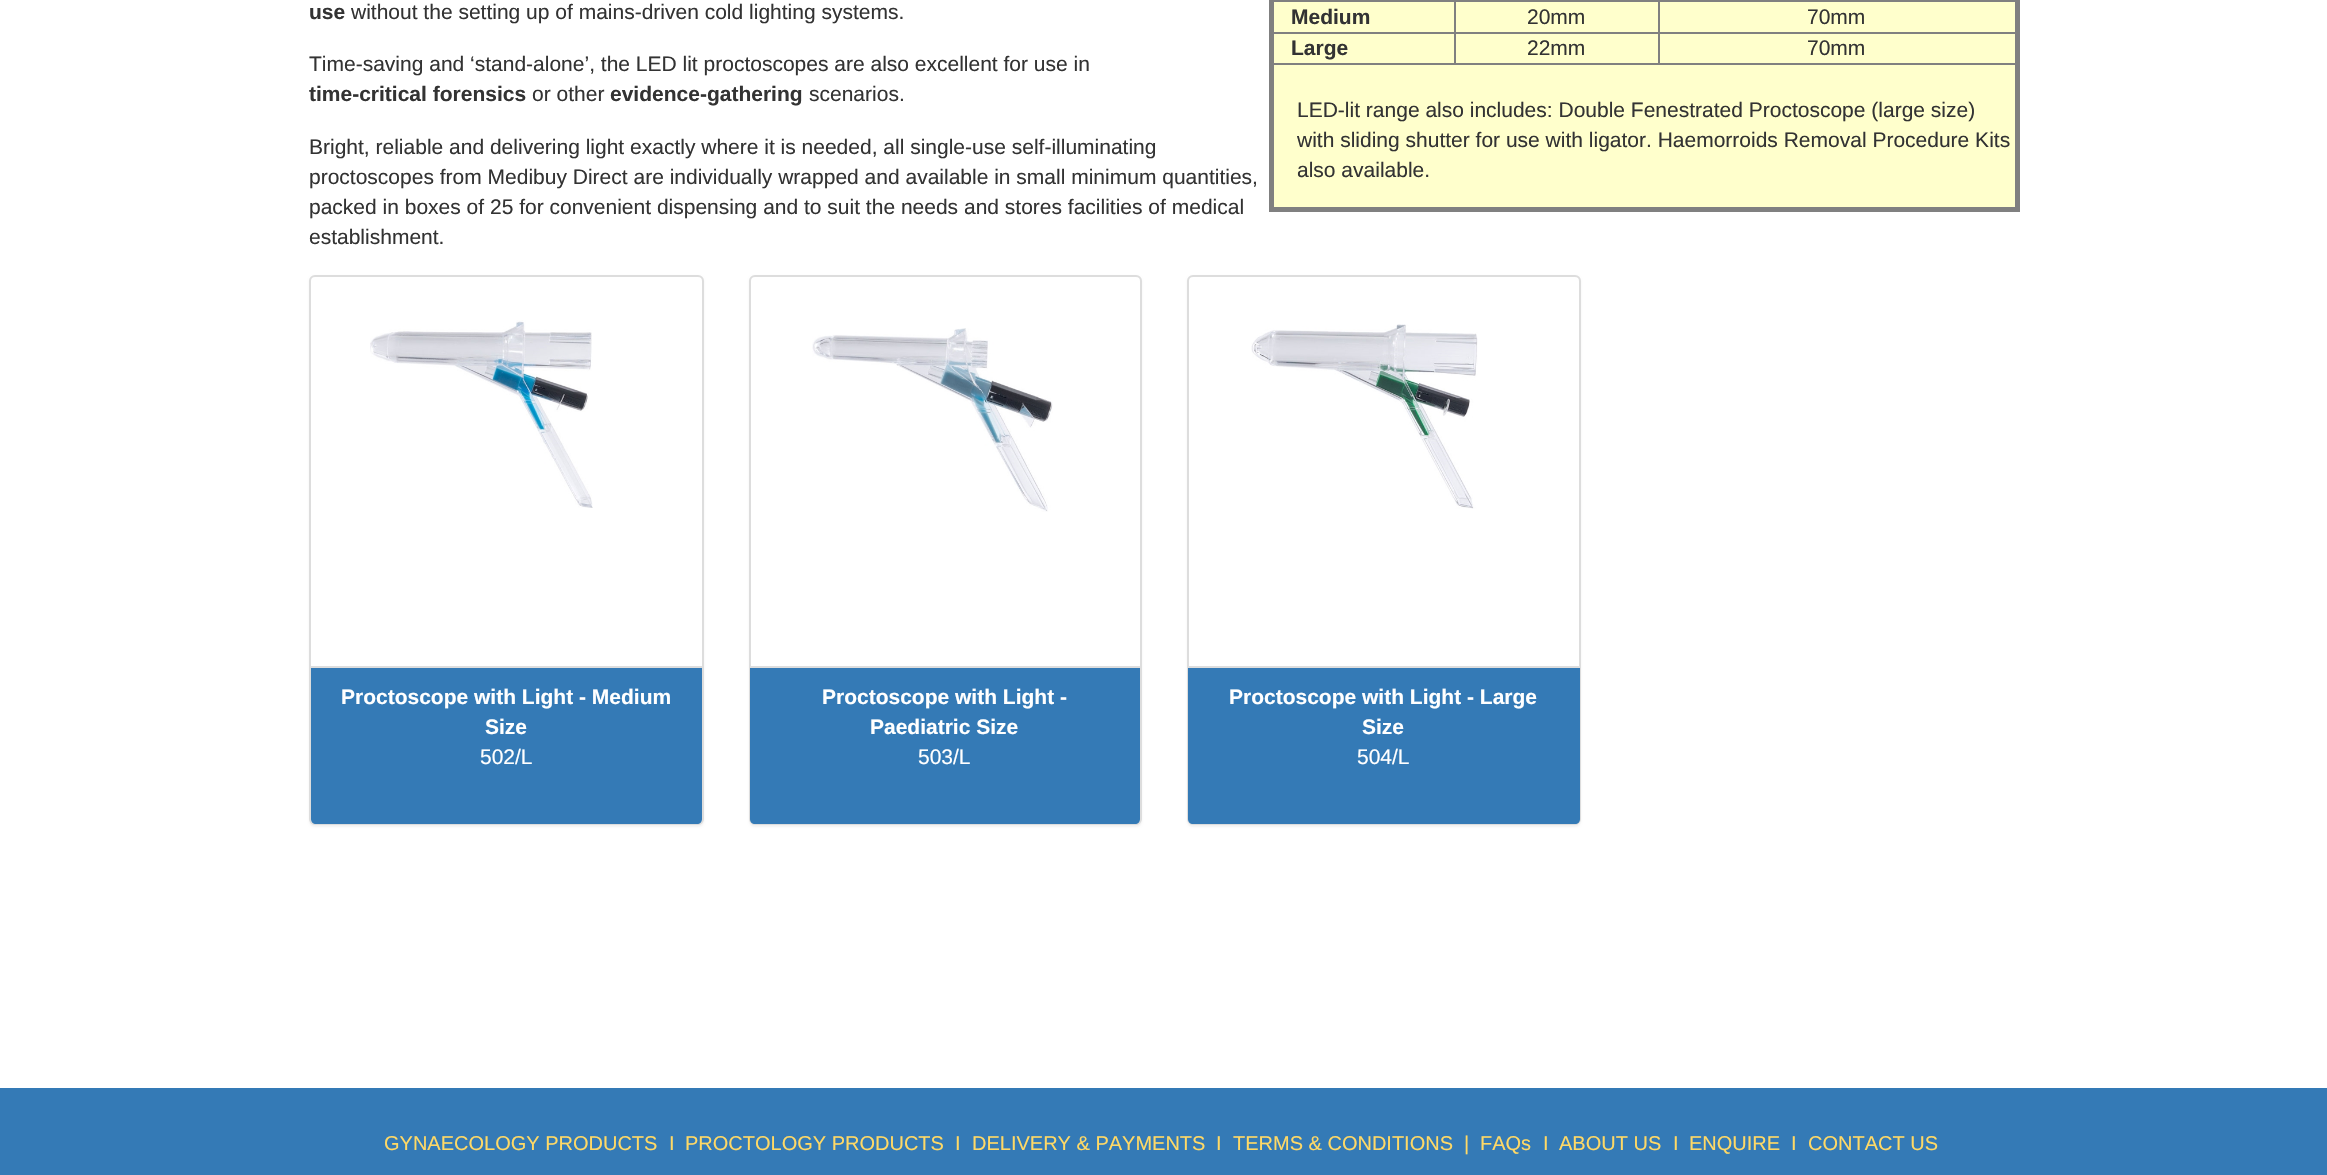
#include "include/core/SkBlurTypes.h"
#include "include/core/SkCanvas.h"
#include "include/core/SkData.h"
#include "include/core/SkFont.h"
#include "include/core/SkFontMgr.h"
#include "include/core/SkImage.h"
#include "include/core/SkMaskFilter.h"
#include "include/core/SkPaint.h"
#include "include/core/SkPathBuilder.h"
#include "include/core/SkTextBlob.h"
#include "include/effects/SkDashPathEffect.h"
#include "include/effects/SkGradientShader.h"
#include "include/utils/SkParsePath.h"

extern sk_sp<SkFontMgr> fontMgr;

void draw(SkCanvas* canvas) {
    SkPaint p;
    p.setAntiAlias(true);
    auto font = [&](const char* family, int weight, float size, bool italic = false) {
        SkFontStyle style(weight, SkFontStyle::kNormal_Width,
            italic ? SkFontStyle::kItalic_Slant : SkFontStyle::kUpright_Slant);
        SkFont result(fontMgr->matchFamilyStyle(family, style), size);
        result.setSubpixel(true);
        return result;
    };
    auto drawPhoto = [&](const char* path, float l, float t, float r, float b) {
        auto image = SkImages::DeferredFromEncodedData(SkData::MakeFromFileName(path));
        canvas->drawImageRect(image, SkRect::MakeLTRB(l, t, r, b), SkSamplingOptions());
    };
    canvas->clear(0xFFFFFFFF);
    auto font1 = font("Liberation Sans", 700, 21);
    p.setColor(0xFF333333);
    canvas->drawString("use", 309, 19, font1, p);
    auto font2 = font("Liberation Sans", 400, 21);
    canvas->drawString("without the setting up of mains-driven cold lighting systems.", 351, 19, font2, p);
    {
        const struct { float l, t, r, b; SkColor color; } items[] = {
            {1658, 0, 2018, 2, 0xFF808080},
            {1658, 32, 2018, 34, 0xFF808080},
            {1271, 63, 2018, 65, 0xFF808080},
            {2015, 0, 2020, 212, 0xFF808080},
            {1269, 207, 2019, 212, 0xFF808080},
            {1658, 32, 1660, 65, 0xFF808080},
            {1454, 32, 1659, 34, 0xFF808080},
            {1658, 0, 1660, 33, 0xFF808080},
            {1454, 0, 1659, 2, 0xFF808080},
            {1454, 32, 1456, 65, 0xFF808080},
            {1271, 32, 1455, 34, 0xFF808080},
            {1454, 0, 1456, 33, 0xFF808080},
            {1271, 0, 1455, 2, 0xFF808080},
            {1269, 0, 1274, 212, 0xFF808080},
            {1274, 2, 1454, 32, 0xFFFFFFCC},
        };
        for (auto [l, t, r, b, color] : items) {
            p.setColor(color);
            canvas->drawRect(SkRect::MakeLTRB(l, t, r, b), p);
        }
    }
    p.setColor(0xFF333333);
    canvas->drawString("Medium", 1291, 24, font1, p);
    p.setColor(0xFFFFFFCC);
    canvas->drawRect(SkRect::MakeLTRB(1456, 2, 1658, 32), p);
    p.setColor(0xFF333333);
    canvas->drawString("20mm", 1527, 24, font2, p);
    p.setColor(0xFFFFFFCC);
    canvas->drawRect(SkRect::MakeLTRB(1660, 2, 2015, 32), p);
    p.setColor(0xFF333333);
    canvas->drawString("70mm", 1807, 24, font2, p);
    p.setColor(0xFFFFFFCC);
    canvas->drawRect(SkRect::MakeLTRB(1274, 34, 1454, 63), p);
    p.setColor(0xFF333333);
    canvas->drawString("Large", 1291, 55, font1, p);
    p.setColor(0xFFFFFFCC);
    canvas->drawRect(SkRect::MakeLTRB(1456, 34, 1658, 63), p);
    p.setColor(0xFF333333);
    canvas->drawString("22mm", 1527, 55, font2, p);
    p.setColor(0xFFFFFFCC);
    canvas->drawRect(SkRect::MakeLTRB(1660, 34, 2015, 63), p);
    p.setColor(0xFF333333);
    canvas->drawString("70mm", 1807, 55, font2, p);
    p.setColor(0xFFFFFFCC);
    canvas->drawRect(SkRect::MakeLTRB(1274, 65, 2015, 207), p);
    p.setColor(0xFF333333);
    {
        const struct { const char* s; float x, y; } items[] = {
            {"LED-lit range also includes: Double Fenestrated Proctoscope (large size)", 1297, 117},
            {"with sliding shutter for use with ligator. Haemorroids Removal Procedure Kits", 1297, 147},
            {"also available.", 1297, 177},
            {"Time-saving and ‘stand-alone’, the LED lit proctoscopes are also excellent for use in", 309, 71},
        };
        for (auto [s, x, y] : items) {
            canvas->drawString(s, x, y, font2, p);
        }
    }
    canvas->drawString("time-critical forensics", 309, 101, font1, p);
    canvas->drawString("or other", 532, 101, font2, p);
    canvas->drawString("evidence-gathering", 610, 101, font1, p);
    {
        const struct { const char* s; float x, y; } items[] = {
            {"scenarios.", 809, 101},
            {"Bright, reliable and delivering light exactly where it is needed, all single-use self-illuminating", 309, 154},
            {"proctoscopes from Medibuy Direct are individually wrapped and available in small minimum quantities,", 309, 184},
            {"packed in boxes of 25 for convenient dispensing and to suit the needs and stores facilities of medical", 309, 214},
            {"establishment.", 309, 244},
        };
        for (auto [s, x, y] : items) {
            canvas->drawString(s, x, y, font2, p);
        }
    }
    p.setColor(0x0D000000);
    p.setMaskFilter(SkMaskFilter::MakeBlur(kNormal_SkBlurStyle, 1));
    canvas->drawRoundRect(SkRect::MakeLTRB(309, 276, 704, 827), 6, 6, p);
    p.setMaskFilter(nullptr);
    p.setColor(0xFFFFFFFF);
    canvas->drawRoundRect(SkRect::MakeLTRB(310, 276, 703, 824), 5, 5, p);
    p.setStyle(SkPaint::kStroke_Style);
    p.setStrokeWidth(2);
    p.setColor(0xFFDDDDDD);
    canvas->drawRoundRect(SkRect::MakeLTRB(310, 276, 703, 824), 5, 5, p);
    drawPhoto("media/1.png", 370, 320, 593, 508);
    p.setStyle(SkPaint::kFill_Style);
    p.setColor(0xFF347AB6);
    canvas->drawPath(SkPathBuilder().moveTo(311, 666).lineTo(702, 666).lineTo(702, 819).cubicTo(702, 822, 700, 824, 697, 824).lineTo(316, 824).cubicTo(313, 824, 311, 822, 311, 819).close().detach(), p);
    p.setColor(0xFFDDDDDD);
    canvas->drawRect(SkRect::MakeLTRB(311, 666, 702, 668), p);
    p.setColor(0xFFFFFFFF);
    canvas->drawString("Proctoscope with Light - Medium", 341, 704, font1, p);
    canvas->drawString("Size", 485, 734, font1, p);
    canvas->drawString("502/L", 480, 764, font2, p);
    p.setColor(0x0D000000);
    p.setMaskFilter(SkMaskFilter::MakeBlur(kNormal_SkBlurStyle, 1));
    canvas->drawRoundRect(SkRect::MakeLTRB(749, 276, 1142, 827), 6, 6, p);
    p.setMaskFilter(nullptr);
    p.setColor(0xFFFFFFFF);
    canvas->drawRoundRect(SkRect::MakeLTRB(750, 276, 1141, 824), 5, 5, p);
    p.setStyle(SkPaint::kStroke_Style);
    p.setColor(0xFFDDDDDD);
    canvas->drawRoundRect(SkRect::MakeLTRB(750, 276, 1141, 824), 5, 5, p);
    drawPhoto("media/2.png", 812, 328, 1053, 512);
    p.setStyle(SkPaint::kFill_Style);
    p.setColor(0xFF347AB6);
    canvas->drawPath(SkPathBuilder().moveTo(750, 666).lineTo(1140, 666).lineTo(1140, 819).cubicTo(1140, 822, 1138, 824, 1135, 824).lineTo(755, 824).cubicTo(752, 824, 750, 822, 750, 819).close().detach(), p);
    p.setColor(0xFFDDDDDD);
    canvas->drawRect(SkRect::MakeLTRB(750, 666, 1140, 668), p);
    p.setColor(0xFFFFFFFF);
    canvas->drawString("Proctoscope with Light -", 822, 704, font1, p);
    canvas->drawString("Paediatric Size", 870, 734, font1, p);
    canvas->drawString("503/L", 918, 764, font2, p);
    p.setColor(0x0D000000);
    p.setMaskFilter(SkMaskFilter::MakeBlur(kNormal_SkBlurStyle, 1));
    canvas->drawRoundRect(SkRect::MakeLTRB(1187, 276, 1581, 827), 6, 6, p);
    p.setMaskFilter(nullptr);
    p.setColor(0xFFFFFFFF);
    canvas->drawRoundRect(SkRect::MakeLTRB(1188, 276, 1580, 824), 5, 5, p);
    p.setStyle(SkPaint::kStroke_Style);
    p.setColor(0xFFDDDDDD);
    canvas->drawRoundRect(SkRect::MakeLTRB(1188, 276, 1580, 824), 5, 5, p);
    drawPhoto("media/3.png", 1251, 324, 1478, 509);
    p.setStyle(SkPaint::kFill_Style);
    p.setColor(0xFF347AB6);
    canvas->drawPath(SkPathBuilder().moveTo(1188, 666).lineTo(1580, 666).lineTo(1580, 819).cubicTo(1580, 822, 1578, 824, 1575, 824).lineTo(1193, 824).cubicTo(1190, 824, 1188, 822, 1188, 819).close().detach(), p);
    p.setColor(0xFFDDDDDD);
    canvas->drawRect(SkRect::MakeLTRB(1188, 666, 1580, 668), p);
    p.setColor(0xFFFFFFFF);
    canvas->drawString("Proctoscope with Light - Large", 1229, 704, font1, p);
    canvas->drawString("Size", 1362, 734, font1, p);
    canvas->drawString("504/L", 1357, 764, font2, p);
    p.setColor(0xFF347AB6);
    canvas->drawRect(SkRect::MakeLTRB(0, 1088, 2327, 1175), p);
    auto font3 = font("Liberation Sans", 400, 20);
    p.setColor(0xFFFFD966);
    {
        const struct { const char* s; float x, y; } items[] = {
            {"GYNAECOLOGY PRODUCTS", 384, 1150},
            {"I", 669, 1150},
            {"PROCTOLOGY PRODUCTS", 685, 1150},
            {"I", 955, 1150},
            {"DELIVERY & PAYMENTS", 972, 1150},
            {"I", 1216, 1150},
            {"TERMS & CONDITIONS", 1233, 1150},
            {"|", 1464, 1150},
            {"FAQs", 1480, 1150},
            {"I", 1543, 1150},
            {"ABOUT US", 1559, 1150},
            {"I", 1673, 1150},
            {"ENQUIRE", 1689, 1150},
            {"I", 1791, 1150},
            {"CONTACT US", 1808, 1150},
        };
        for (auto [s, x, y] : items) {
            canvas->drawString(s, x, y, font3, p);
        }
    }
}
